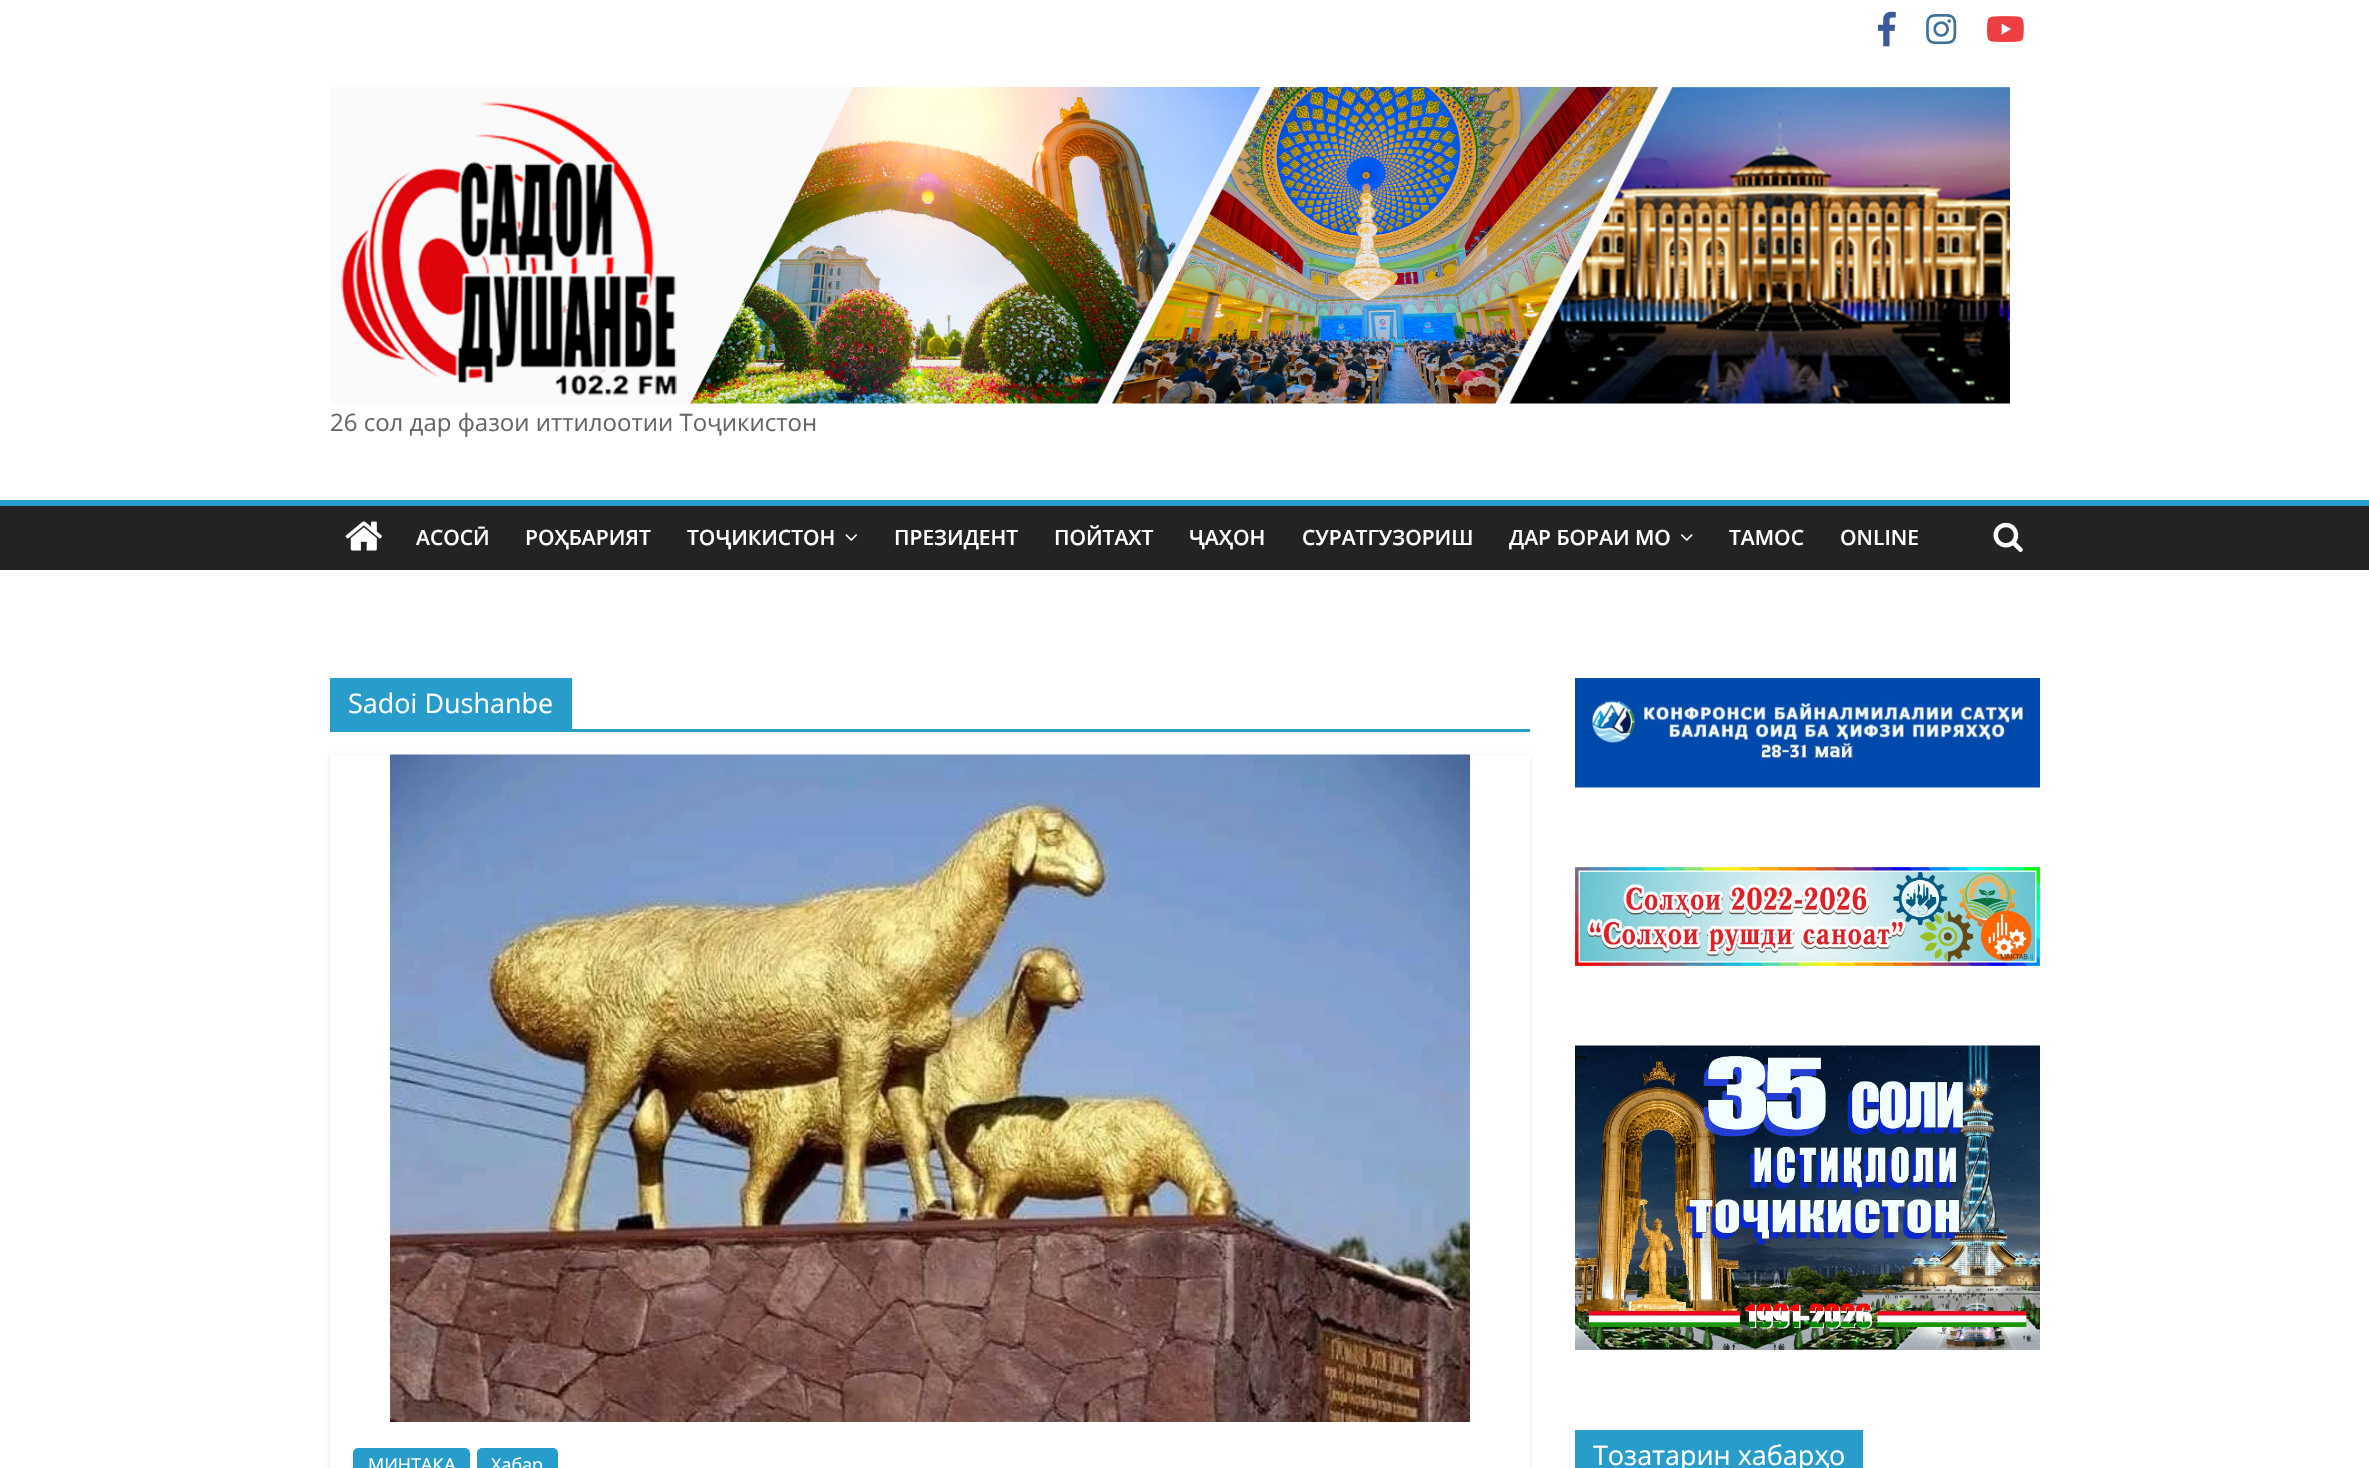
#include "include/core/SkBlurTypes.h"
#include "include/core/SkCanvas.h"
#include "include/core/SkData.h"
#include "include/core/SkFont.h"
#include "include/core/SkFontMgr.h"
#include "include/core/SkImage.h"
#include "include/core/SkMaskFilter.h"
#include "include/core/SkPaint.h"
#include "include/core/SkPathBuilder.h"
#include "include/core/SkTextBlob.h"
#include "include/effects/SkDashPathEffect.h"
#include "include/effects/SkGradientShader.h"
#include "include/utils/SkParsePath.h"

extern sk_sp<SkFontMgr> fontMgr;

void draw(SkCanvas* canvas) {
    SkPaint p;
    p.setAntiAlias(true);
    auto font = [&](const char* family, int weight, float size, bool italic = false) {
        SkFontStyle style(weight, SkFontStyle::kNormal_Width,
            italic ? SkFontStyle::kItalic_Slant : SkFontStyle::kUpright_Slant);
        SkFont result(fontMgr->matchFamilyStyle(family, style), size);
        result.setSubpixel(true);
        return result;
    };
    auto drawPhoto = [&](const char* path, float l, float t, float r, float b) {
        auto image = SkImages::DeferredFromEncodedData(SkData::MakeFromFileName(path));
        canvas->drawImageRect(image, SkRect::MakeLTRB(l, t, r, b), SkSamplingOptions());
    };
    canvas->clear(0xFFFFFFFF);
    drawPhoto("media/1.png", 1878, 11, 1896, 47);
    drawPhoto("media/2.png", 1926, 14, 1957, 45);
    drawPhoto("media/3.png", 1987, 16, 2024, 42);
    drawPhoto("media/4.png", 330, 87, 2010, 404);
    auto font1 = font("Open Sans", 400, 24);
    p.setColor(0xFF666666);
    canvas->drawString("26 сол дар фазои иттилоотии Тоҷикистон", 330, 431, font1, p);
    p.setColor(0xFF232323);
    canvas->drawRect(SkRect::MakeLTRB(0, 506, 2369, 570), p);
    p.setColor(0xFF289DCC);
    canvas->drawRect(SkRect::MakeLTRB(0, 500, 2369, 506), p);
    drawPhoto("media/5.png", 345, 521, 382, 551);
    auto font2 = font("Open Sans", 600, 21);
    p.setColor(0xFFFFFFFF);
    {
        const struct { const char* s; float x, y; } items[] = {
            {"АСОСӢ", 416, 545},
            {"РОҲБАРИЯТ", 525, 545},
            {"ТОҶИКИСТОН", 687, 545},
        };
        for (auto [s, x, y] : items) {
            canvas->drawString(s, x, y, font2, p);
        }
    }
    drawPhoto("media/6.png", 845, 534, 857, 541);
    {
        const struct { const char* s; float x, y; } items[] = {
            {"ПРЕЗИДЕНТ", 894, 545},
            {"ПОЙТАХТ", 1054, 545},
            {"ҶАҲОН", 1189, 545},
            {"СУРАТГУЗОРИШ", 1302, 545},
            {"ДАР БОРАИ МО", 1509, 545},
        };
        for (auto [s, x, y] : items) {
            canvas->drawString(s, x, y, font2, p);
        }
    }
    drawPhoto("media/7.png", 1681, 534, 1693, 541);
    canvas->drawString("ТАМОС", 1729, 545, font2, p);
    canvas->drawString("ONLINE", 1840, 545, font2, p);
    drawPhoto("media/8.png", 1993, 522, 2023, 552);
    p.setColor(0xFF289DCC);
    canvas->drawRect(SkRect::MakeLTRB(330, 729, 1530, 732), p);
    canvas->drawRect(SkRect::MakeLTRB(330, 678, 572, 729), p);
    auto font3 = font("Open Sans", 400, 27);
    p.setColor(0xFFFFFFFF);
    canvas->drawString("Sadoi Dushanbe", 348, 713, font3, p);
    canvas->save();
    canvas->clipPath(SkPathBuilder(SkPathFillType::kEvenOdd).moveTo(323, 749).lineTo(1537, 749).lineTo(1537, 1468).lineTo(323, 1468).close().moveTo(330, 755).lineTo(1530, 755).lineTo(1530, 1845).lineTo(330, 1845).close().detach(), true);
    p.setColor(0x1A000000);
    p.setMaskFilter(SkMaskFilter::MakeBlur(kNormal_SkBlurStyle, 2));
    canvas->drawRect(SkRect::MakeLTRB(330, 756, 1530, 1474), p);
    p.setMaskFilter(nullptr);
    canvas->restore();
    drawPhoto("media/9.png", 390, 754, 1470, 1422);
    p.setColor(0xFF289DCC);
    canvas->drawRoundRect(SkRect::MakeLTRB(353, 1448, 470, 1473), 5, 5, p);
    auto font4 = font("Open Sans", 400, 18);
    p.setColor(0xFFFFFFFF);
    canvas->drawString("МИНТАҚА", 368, 1471, font4, p);
    p.setColor(0xFF289DCC);
    canvas->drawRoundRect(SkRect::MakeLTRB(477, 1448, 558, 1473), 5, 5, p);
    p.setColor(0xFFFFFFFF);
    canvas->drawString("Хабар", 491, 1471, font4, p);
    drawPhoto("media/10.png", 1575, 678, 2040, 788);
    drawPhoto("media/11.png", 1575, 867, 2040, 966);
    drawPhoto("media/12.png", 1575, 1045, 2040, 1350);
    p.setColor(0xFF289DCC);
    canvas->drawRect(SkRect::MakeLTRB(1575, 1430, 1863, 1468), p);
    p.setColor(0xFFFFFFFF);
    canvas->drawString("Тозатарин хабарҳо", 1593, 1465, font3, p);
}
